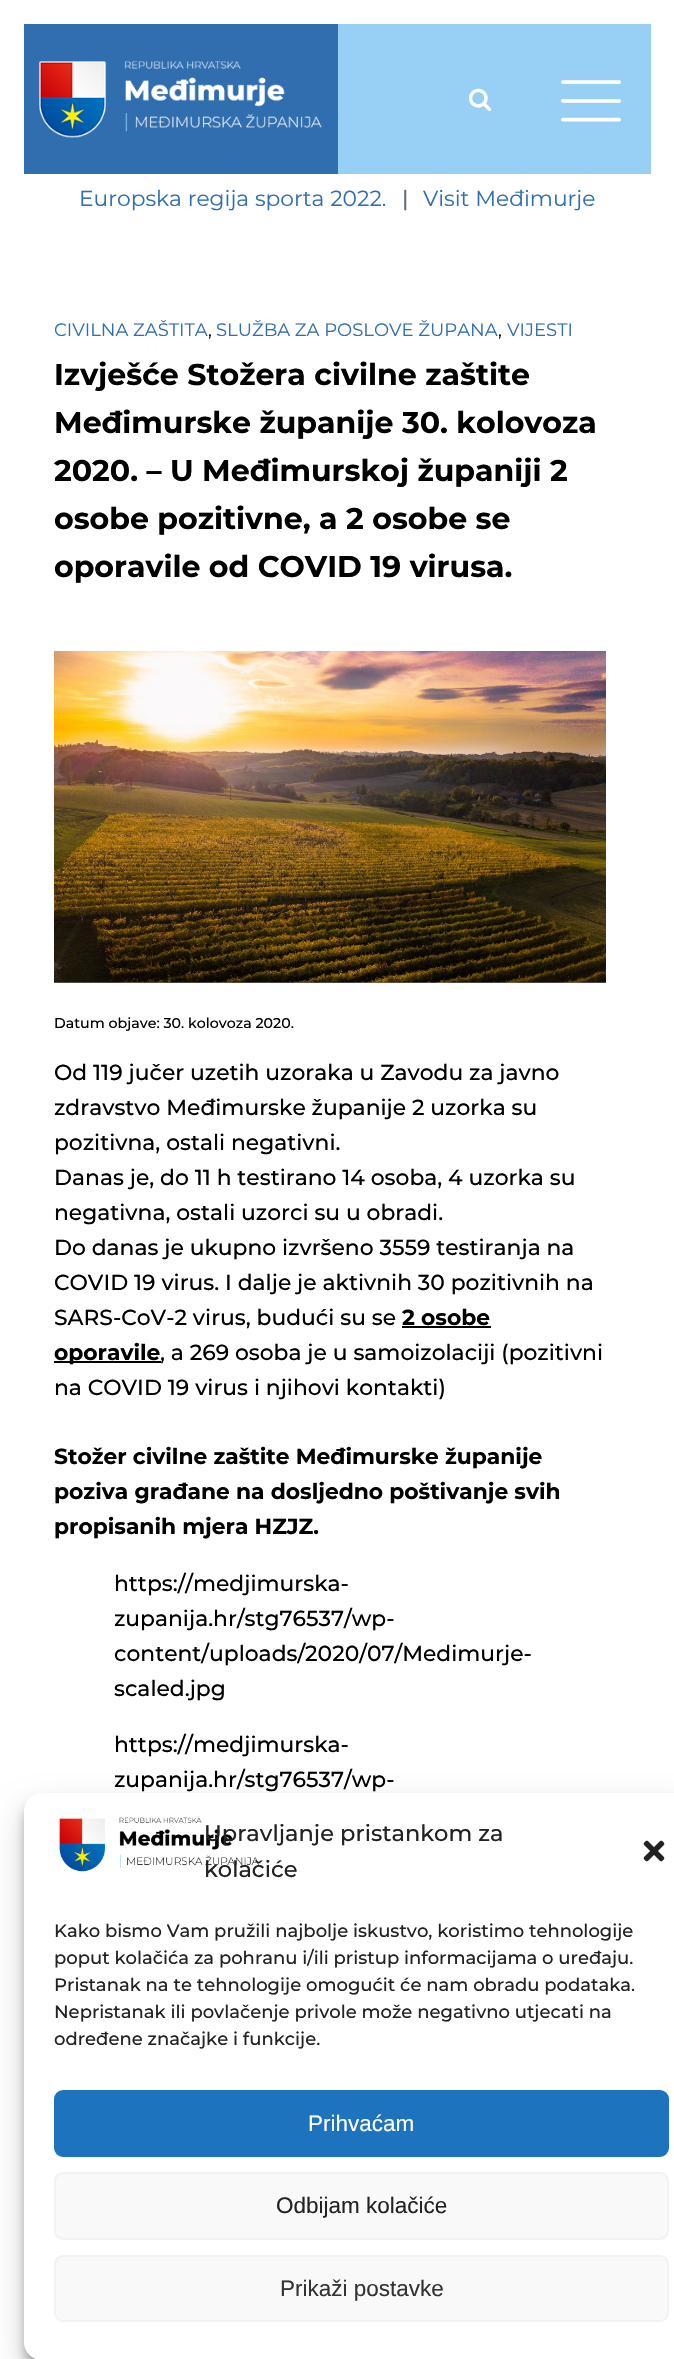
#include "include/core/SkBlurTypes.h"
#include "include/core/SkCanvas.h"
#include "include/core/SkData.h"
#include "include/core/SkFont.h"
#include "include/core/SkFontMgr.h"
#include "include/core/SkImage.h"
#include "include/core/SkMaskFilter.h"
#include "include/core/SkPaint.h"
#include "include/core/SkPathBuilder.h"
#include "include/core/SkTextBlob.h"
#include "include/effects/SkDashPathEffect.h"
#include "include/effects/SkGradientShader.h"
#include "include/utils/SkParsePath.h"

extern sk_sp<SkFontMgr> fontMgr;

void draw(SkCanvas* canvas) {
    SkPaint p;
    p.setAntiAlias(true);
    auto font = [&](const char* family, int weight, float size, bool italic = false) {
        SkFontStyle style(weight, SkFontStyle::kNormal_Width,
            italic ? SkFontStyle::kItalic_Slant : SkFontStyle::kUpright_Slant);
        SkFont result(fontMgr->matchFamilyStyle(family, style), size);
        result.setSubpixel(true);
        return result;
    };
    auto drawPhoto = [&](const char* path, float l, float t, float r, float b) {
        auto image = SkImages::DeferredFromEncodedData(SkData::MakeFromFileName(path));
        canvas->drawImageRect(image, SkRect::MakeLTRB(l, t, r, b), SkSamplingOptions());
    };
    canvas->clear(0xFFFFFFFF);
    p.setColor(0xFF306EAF);
    canvas->drawRect(SkRect::MakeLTRB(24, 24, 338, 174), p);
    drawPhoto("media/1.png", 39, 61, 322, 138);
    p.setColor(0xFF98D0F5);
    canvas->drawRect(SkRect::MakeLTRB(338, 24, 651, 174), p);
    drawPhoto("media/2.png", 468, 88, 492, 111);
    drawPhoto("media/3.png", 561, 80, 621, 122);
    auto font1 = font("Montserrat", 400, 21.8f);
    p.setColor(0xFF306EAF);
    canvas->drawString("Europska regija sporta 2022.", 79, 206, font1, p);
    auto font2 = font("Montserrat", 500, 21.8f);
    p.setColor(0xFF606E79);
    canvas->drawString("|", 402, 206, font2, p);
    p.setColor(0xFF306EAF);
    canvas->drawString("Visit Međimurje", 423, 206, font1, p);
    auto font3 = font("Montserrat", 400, 18);
    canvas->drawString("CIVILNA ZAŠTITA", 54, 336, font3, p);
    p.setColor(0xFF000000);
    canvas->drawString(",", 208, 336, font3, p);
    p.setColor(0xFF306EAF);
    canvas->drawString("SLUŽBA ZA POSLOVE ŽUPANA", 216, 336, font3, p);
    p.setColor(0xFF000000);
    canvas->drawString(",", 498, 336, font3, p);
    p.setColor(0xFF306EAF);
    canvas->drawString("VIJESTI", 507, 336, font3, p);
    auto font4 = font("Montserrat", 700, 30);
    p.setColor(0xFF000000);
    {
        const struct { const char* s; float x, y; } items[] = {
            {"Izvješće Stožera civilne zaštite", 54, 385},
            {"Međimurske županije 30. kolovoza", 54, 433},
            {"2020. – U Međimurskoj županiji 2", 54, 481},
            {"osobe pozitivne, a 2 osobe se", 54, 529},
            {"oporavile od COVID 19 virusa.", 54, 577},
        };
        for (auto [s, x, y] : items) {
            canvas->drawString(s, x, y, font4, p);
        }
    }
    p.setColor(0xFF808080);
    canvas->drawRect(SkRect::MakeLTRB(54, 982, 606, 983), p);
    drawPhoto("media/4.png", 54, 651, 606, 983);
    auto font5 = font("Montserrat", 500, 14.2f);
    p.setColor(0xFF000000);
    canvas->drawString("Datum objave: 30. kolovoza 2020.", 54, 1028, font5, p);
    {
        const struct { const char* s; float x, y; } items[] = {
            {"Od 119 jučer uzetih uzoraka u Zavodu za javno", 54, 1080},
            {"zdravstvo Međimurske županije 2 uzorka su", 54, 1115},
            {"pozitivna, ostali negativni.", 54, 1150},
            {"Danas je, do 11 h testirano 14 osoba, 4 uzorka su", 54, 1185},
            {"negativna, ostali uzorci su u obradi.", 54, 1220},
            {"Do danas je ukupno izvršeno 3559 testiranja na", 54, 1255},
            {"COVID 19 virus. I dalje je aktivnih 30 pozitivnih na", 54, 1290},
            {"SARS-CoV-2 virus, budući su se", 54, 1325},
        };
        for (auto [s, x, y] : items) {
            canvas->drawString(s, x, y, font2, p);
        }
    }
    auto font6 = font("Montserrat", 700, 21.8f);
    canvas->drawString("2 osobe", 402, 1325, font6, p);
    canvas->drawRect(SkRect::MakeLTRB(402, 1326, 491, 1328), p);
    canvas->drawRect(SkRect::MakeLTRB(54, 1361, 161, 1363), p);
    canvas->drawString("oporavile", 54, 1360, font6, p);
    canvas->drawString(", a 269 osoba je u samoizolaciji (pozitivni", 160, 1360, font2, p);
    canvas->drawString("na COVID 19 virus i njihovi kontakti)", 54, 1395, font2, p);
    {
        const struct { const char* s; float x, y; } items[] = {
            {"Stožer civilne zaštite Međimurske županije", 54, 1464},
            {"poziva građane na dosljedno poštivanje svih", 54, 1499},
            {"propisanih mjera HZJZ.", 54, 1534},
        };
        for (auto [s, x, y] : items) {
            canvas->drawString(s, x, y, font6, p);
        }
    }
    {
        const struct { const char* s; float x, y; } items[] = {
            {"https://medjimurska-", 114, 1591},
            {"zupanija.hr/stg76537/wp-", 114, 1626},
            {"content/uploads/2020/07/Medimurje-", 114, 1661},
            {"scaled.jpg", 114, 1696},
            {"https://medjimurska-", 114, 1752},
            {"zupanija.hr/stg76537/wp-", 114, 1787},
        };
        for (auto [s, x, y] : items) {
            canvas->drawString(s, x, y, font2, p);
        }
    }
    p.setColor(0x3B000000);
    p.setMaskFilter(SkMaskFilter::MakeBlur(kNormal_SkBlurStyle, 4.5f));
    canvas->drawRoundRect(SkRect::MakeLTRB(24, 1802, 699, 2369), 18, 18, p);
    p.setMaskFilter(nullptr);
    p.setColor(0x30000000);
    p.setMaskFilter(SkMaskFilter::MakeBlur(kNormal_SkBlurStyle, 15));
    canvas->drawRoundRect(SkRect::MakeLTRB(24, 1808, 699, 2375), 18, 18, p);
    p.setMaskFilter(nullptr);
    p.setColor(0xFFFFFFFF);
    canvas->drawRoundRect(SkRect::MakeLTRB(24, 1793, 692, 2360), 18, 18, p);
    drawPhoto("media/5.png", 59, 1817, 259, 1872);
    auto font7 = font("Montserrat", 500, 22.5f);
    p.setColor(0xFF222222);
    canvas->drawString("Upravljanje pristankom za", 204, 1841, font7, p);
    canvas->drawString("kolačiće", 204, 1877, font7, p);
    drawPhoto("media/6.png", 643, 1840, 665, 1862);
    auto font8 = font("Montserrat", 500, 18);
    {
        const struct { const char* s; float x, y; } items[] = {
            {"Kako bismo Vam pružili najbolje iskustvo, koristimo tehnologije", 54, 1937},
            {"poput kolačića za pohranu i/ili pristup informacijama o uređaju.", 54, 1964},
            {"Pristanak na te tehnologije omogućit će nam obradu podataka.", 54, 1991},
            {"Nepristanak ili povlačenje privole može negativno utjecati na", 54, 2018},
            {"određene značajke i funkcije.", 54, 2045},
        };
        for (auto [s, x, y] : items) {
            canvas->drawString(s, x, y, font8, p);
        }
    }
    p.setColor(0xFF1E73BE);
    canvas->drawRoundRect(SkRect::MakeLTRB(55, 2091, 668, 2156), 8, 8, p);
    p.setStyle(SkPaint::kStroke_Style);
    p.setStrokeWidth(2);
    canvas->drawRoundRect(SkRect::MakeLTRB(55, 2091, 668, 2156), 8, 8, p);
    auto font9 = font("Liberation Sans", 400, 22.5f);
    p.setStyle(SkPaint::kFill_Style);
    p.setColor(0xFFFFFFFF);
    canvas->drawString("Prihvaćam", 308, 2131, font9, p);
    p.setColor(0xFFF9F9F9);
    canvas->drawRoundRect(SkRect::MakeLTRB(55, 2173, 668, 2239), 8, 8, p);
    p.setStyle(SkPaint::kStroke_Style);
    p.setColor(0xFFF2F2F2);
    canvas->drawRoundRect(SkRect::MakeLTRB(55, 2173, 668, 2239), 8, 8, p);
    p.setStyle(SkPaint::kFill_Style);
    p.setColor(0xFF222222);
    canvas->drawString("Odbijam kolačiće", 276, 2213, font9, p);
    p.setColor(0xFFF9F9F9);
    canvas->drawRoundRect(SkRect::MakeLTRB(55, 2256, 668, 2321), 8, 8, p);
    p.setStyle(SkPaint::kStroke_Style);
    p.setColor(0xFFF2F2F2);
    canvas->drawRoundRect(SkRect::MakeLTRB(55, 2256, 668, 2321), 8, 8, p);
    p.setStyle(SkPaint::kFill_Style);
    p.setColor(0xFF333333);
    canvas->drawString("Prikaži postavke", 280, 2296, font9, p);
}
